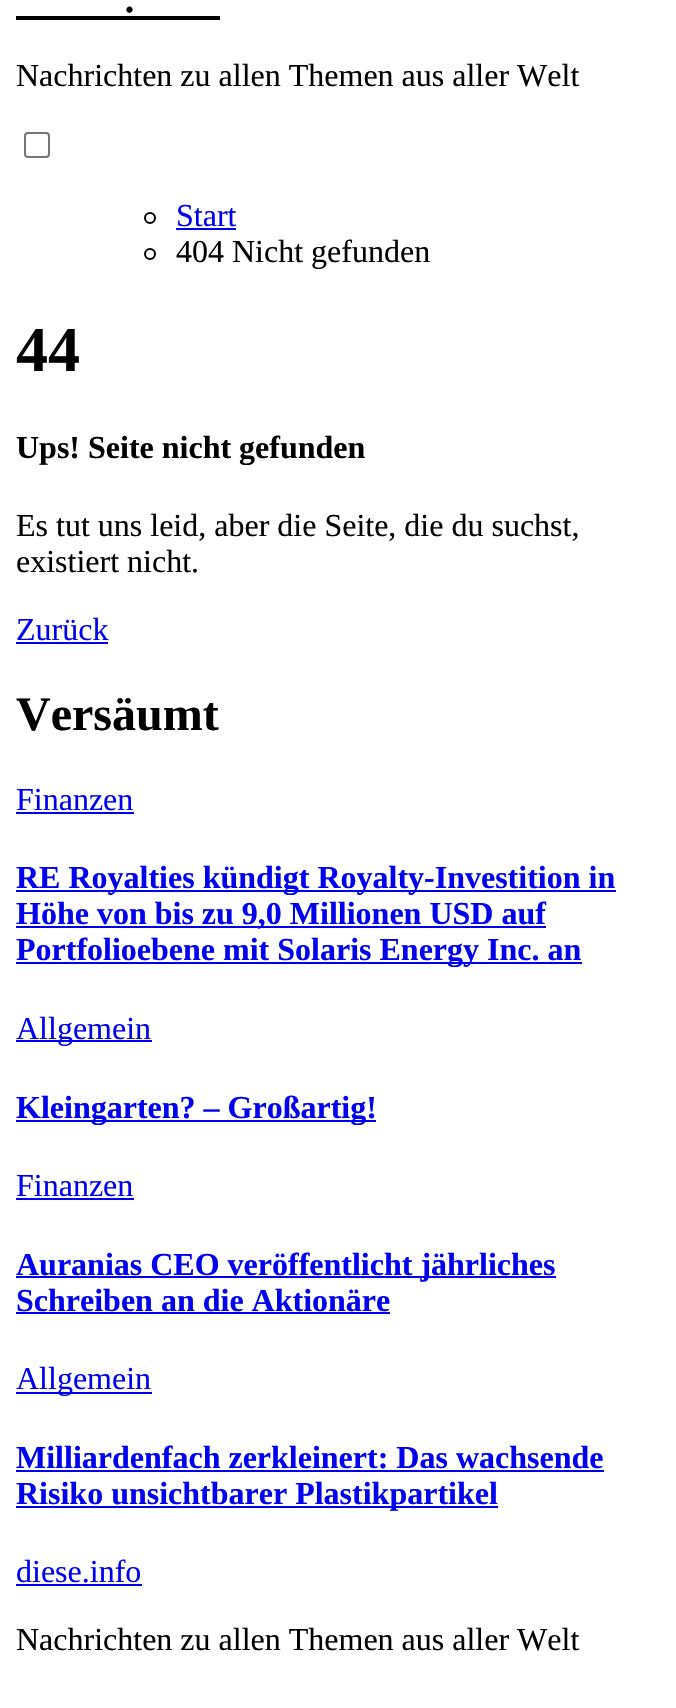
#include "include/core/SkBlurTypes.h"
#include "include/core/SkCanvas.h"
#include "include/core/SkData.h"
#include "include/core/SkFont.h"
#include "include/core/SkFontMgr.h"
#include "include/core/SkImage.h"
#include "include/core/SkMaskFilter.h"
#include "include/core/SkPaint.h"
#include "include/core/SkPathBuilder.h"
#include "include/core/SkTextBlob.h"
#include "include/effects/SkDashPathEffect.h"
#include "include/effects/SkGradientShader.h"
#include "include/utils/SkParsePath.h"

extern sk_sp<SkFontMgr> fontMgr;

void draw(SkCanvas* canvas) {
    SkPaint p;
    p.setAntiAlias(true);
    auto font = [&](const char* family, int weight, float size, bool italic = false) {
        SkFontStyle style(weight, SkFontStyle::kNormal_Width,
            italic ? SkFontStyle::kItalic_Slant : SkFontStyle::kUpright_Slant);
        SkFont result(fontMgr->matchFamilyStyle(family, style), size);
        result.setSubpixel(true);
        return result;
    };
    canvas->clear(0xFFFFFFFF);
    auto font1 = font("Liberation Serif", 400, 52);
    p.setColor(0xFF000000);
    canvas->drawString(".", 123, 12, font1, p);
    canvas->drawRect(SkRect::MakeLTRB(16, 16, 220, 20), p);
    auto font2 = font("Liberation Serif", 400, 32);
    canvas->drawString("Nachrichten zu allen Themen aus aller Welt", 16, 86, font2, p);
    p.setStyle(SkPaint::kStroke_Style);
    p.setStrokeWidth(2);
    p.setColor(0xFF767676);
    canvas->drawRoundRect(SkRect::MakeLTRB(25, 133, 49, 157), 3, 3, p);
    p.setColor(0xFF000000);
    canvas->drawCircle(150, 218, 5, p);
    p.setStyle(SkPaint::kFill_Style);
    p.setColor(0xFF0000EE);
    canvas->drawString("Start", 176, 226, font2, p);
    canvas->drawRect(SkRect::MakeLTRB(176, 228, 236, 230), p);
    p.setStyle(SkPaint::kStroke_Style);
    p.setColor(0xFF000000);
    canvas->drawCircle(150, 254, 5, p);
    p.setStyle(SkPaint::kFill_Style);
    canvas->drawString("404 Nicht gefunden", 176, 262, font2, p);
    auto font3 = font("Liberation Serif", 700, 64);
    canvas->drawString("44", 16, 371, font3, p);
    auto font4 = font("Liberation Serif", 700, 32);
    canvas->drawString("Ups! Seite nicht gefunden", 16, 458, font4, p);
    canvas->drawString("Es tut uns leid, aber die Seite, die du suchst,", 16, 536, font2, p);
    canvas->drawString("existiert nicht.", 16, 572, font2, p);
    p.setColor(0xFF0000EE);
    canvas->drawString("Zurück", 16, 640, font2, p);
    canvas->drawRect(SkRect::MakeLTRB(16, 642, 108, 644), p);
    auto font5 = font("Liberation Serif", 700, 48);
    p.setColor(0xFF000000);
    canvas->drawString("Versäumt", 16, 730, font5, p);
    p.setColor(0xFF0000EE);
    canvas->drawString("Finanzen", 16, 810, font2, p);
    canvas->drawRect(SkRect::MakeLTRB(16, 812, 134, 814), p);
    canvas->drawRect(SkRect::MakeLTRB(16, 890, 616, 892), p);
    canvas->drawString("RE Royalties kündigt Royalty-Investition in", 16, 888, font4, p);
    canvas->drawRect(SkRect::MakeLTRB(16, 926, 546, 928), p);
    canvas->drawString("Höhe von bis zu 9,0 Millionen USD auf", 16, 924, font4, p);
    canvas->drawRect(SkRect::MakeLTRB(16, 962, 582, 964), p);
    canvas->drawString("Portfolioebene mit Solaris Energy Inc. an", 16, 960, font4, p);
    canvas->drawRect(SkRect::MakeLTRB(16, 1040, 152, 1042), p);
    canvas->drawString("Allgemein", 16, 1039, font2, p);
    canvas->drawRect(SkRect::MakeLTRB(16, 1120, 376, 1122), p);
    canvas->drawString("Kleingarten? – Großartig!", 16, 1118, font4, p);
    canvas->drawString("Finanzen", 16, 1196, font2, p);
    canvas->drawRect(SkRect::MakeLTRB(16, 1198, 134, 1200), p);
    canvas->drawRect(SkRect::MakeLTRB(16, 1276, 556, 1278), p);
    canvas->drawString("Auranias CEO veröffentlicht jährliches", 16, 1275, font4, p);
    canvas->drawString("Schreiben an die Aktionäre", 16, 1311, font4, p);
    canvas->drawRect(SkRect::MakeLTRB(16, 1312, 390, 1314), p);
    canvas->drawRect(SkRect::MakeLTRB(16, 1392, 152, 1394), p);
    canvas->drawString("Allgemein", 16, 1389, font2, p);
    canvas->drawString("Milliardenfach zerkleinert: Das wachsende", 16, 1468, font4, p);
    canvas->drawRect(SkRect::MakeLTRB(16, 1470, 604, 1472), p);
    canvas->drawRect(SkRect::MakeLTRB(16, 1506, 498, 1508), p);
    canvas->drawString("Risiko unsichtbarer Plastikpartikel", 16, 1504, font4, p);
    canvas->drawString("diese.info", 16, 1582, font2, p);
    canvas->drawRect(SkRect::MakeLTRB(16, 1584, 142, 1586), p);
    p.setColor(0xFF000000);
    canvas->drawString("Nachrichten zu allen Themen aus aller Welt", 16, 1650, font2, p);
}
